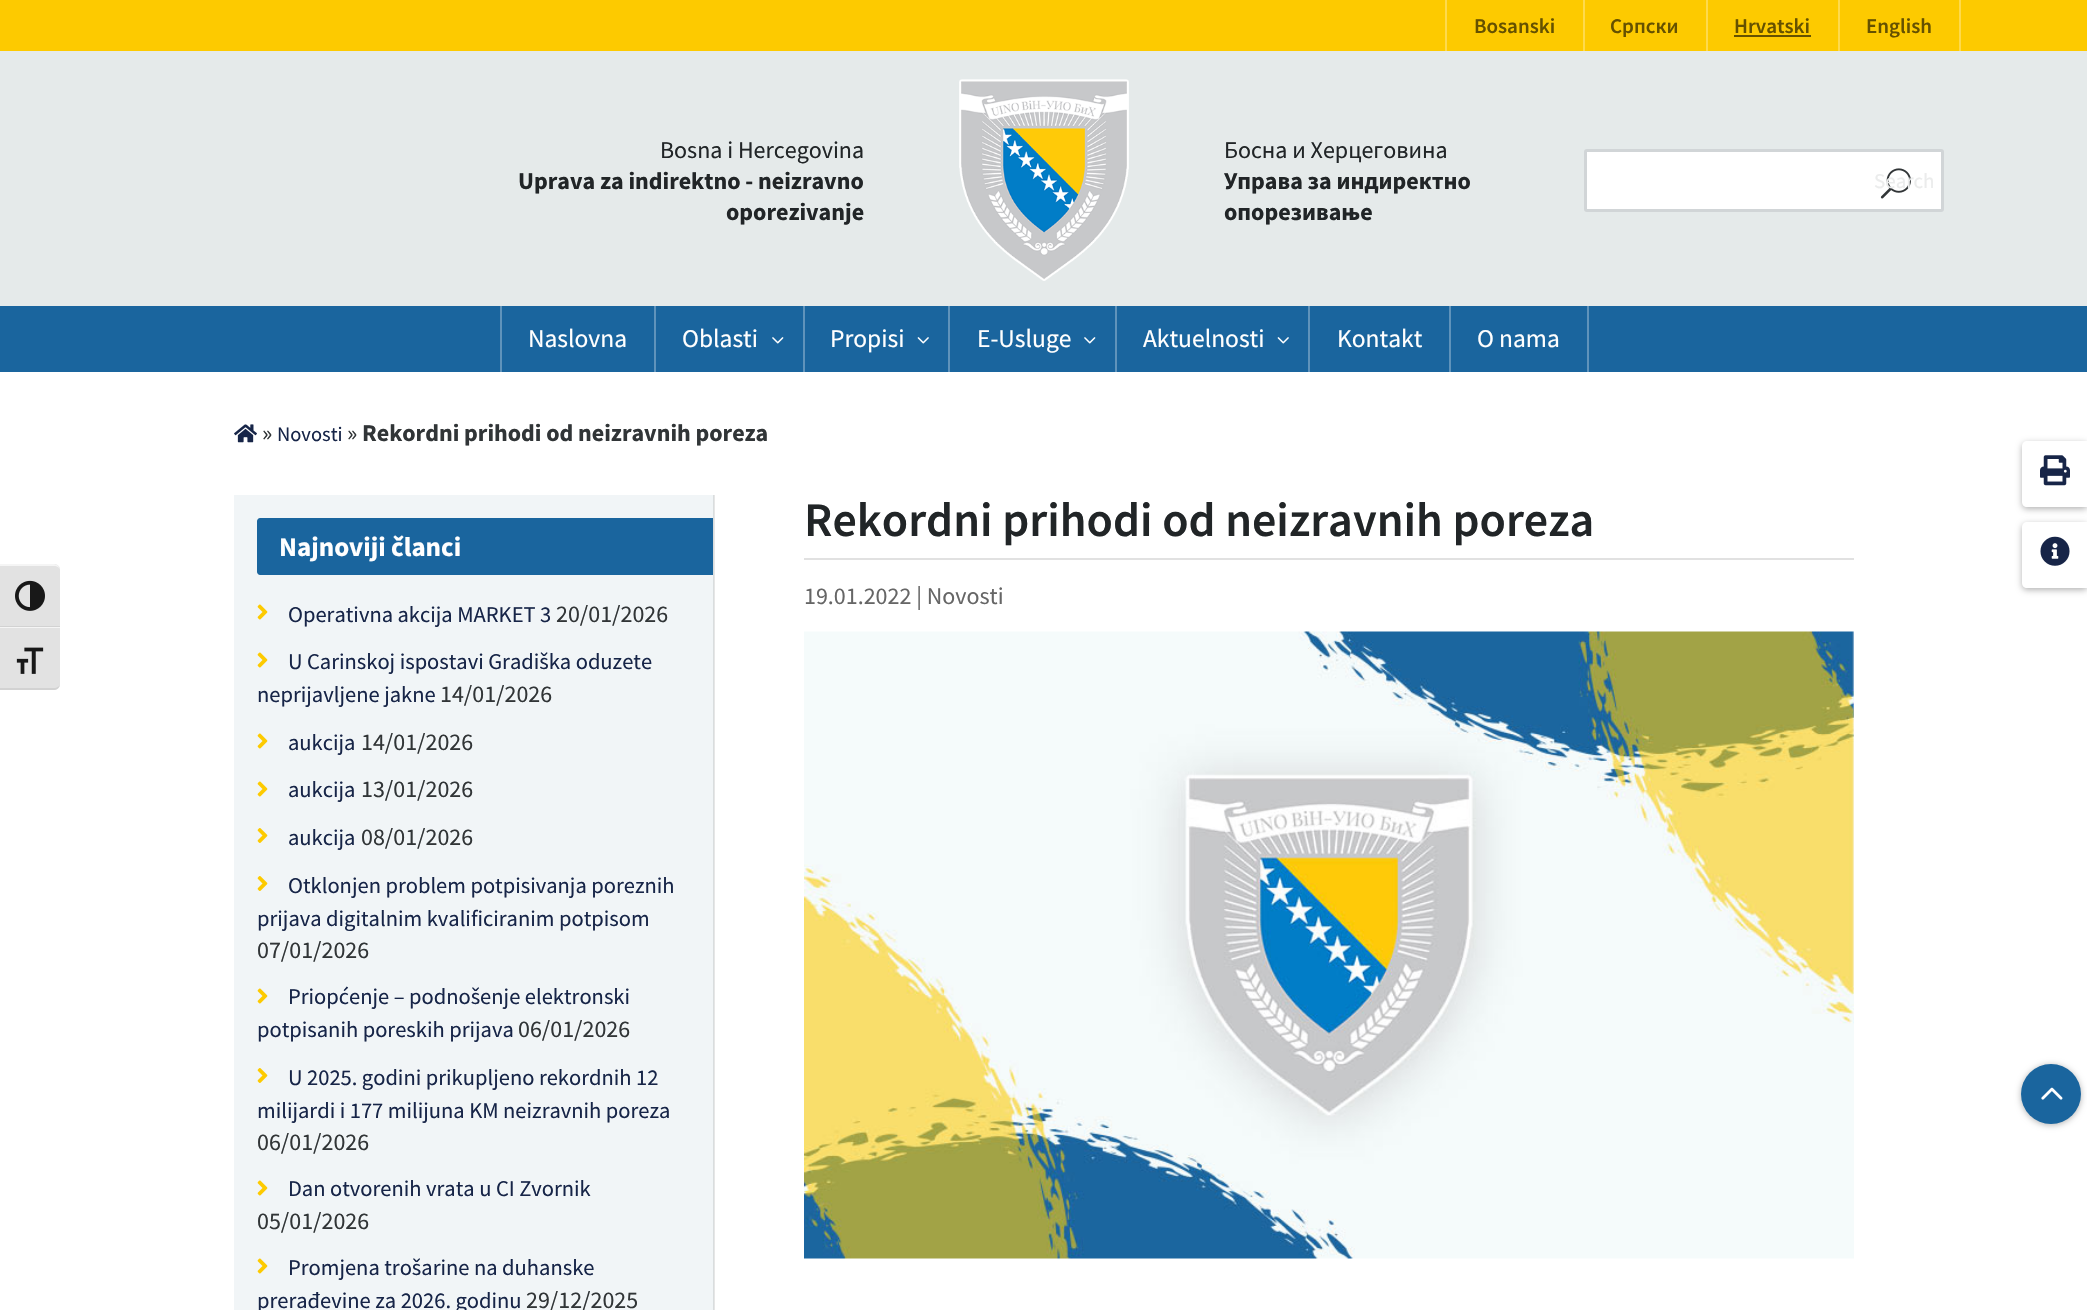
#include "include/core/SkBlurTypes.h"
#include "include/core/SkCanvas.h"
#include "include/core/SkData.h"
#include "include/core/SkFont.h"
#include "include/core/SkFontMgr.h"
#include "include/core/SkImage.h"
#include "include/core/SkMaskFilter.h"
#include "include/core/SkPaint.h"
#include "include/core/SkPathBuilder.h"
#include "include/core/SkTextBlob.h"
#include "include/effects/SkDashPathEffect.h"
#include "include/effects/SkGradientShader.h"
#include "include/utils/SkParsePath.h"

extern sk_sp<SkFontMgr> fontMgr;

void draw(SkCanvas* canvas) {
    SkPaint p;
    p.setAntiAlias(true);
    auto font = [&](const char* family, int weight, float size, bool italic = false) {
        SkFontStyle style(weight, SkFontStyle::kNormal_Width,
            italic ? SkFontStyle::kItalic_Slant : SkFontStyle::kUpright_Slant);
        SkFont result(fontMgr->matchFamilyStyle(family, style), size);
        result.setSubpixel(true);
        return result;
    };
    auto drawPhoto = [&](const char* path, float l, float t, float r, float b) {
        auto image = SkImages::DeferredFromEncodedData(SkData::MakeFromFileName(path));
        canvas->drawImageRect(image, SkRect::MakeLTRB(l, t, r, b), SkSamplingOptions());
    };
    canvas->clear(0xFFFFFFFF);
    p.setColor(0xFFE6E6E6);
    canvas->drawRect(SkRect::MakeLTRB(714, 495, 715, 1310), p);
    p.setColor(0xFFE2E2E2);
    canvas->drawPath(SkPathBuilder().moveTo(0, 564).lineTo(54, 564).cubicTo(57.5f, 564, 60, 566.5f, 60, 570).lineTo(60, 627).lineTo(0, 627).close().detach(), p);
    p.setColor(0xFFF5F5F5);
    canvas->drawPath(SkPathBuilder().moveTo(0, 564).lineTo(0, 566).lineTo(54, 566).cubicTo(57, 566, 60, 568, 60, 570).cubicTo(60, 567, 57, 564, 54, 564).close().detach(), p);
    p.setColor(0xFFD2D2D2);
    canvas->drawRect(SkRect::MakeLTRB(0, 626, 60, 627), p);
    drawPhoto("media/1.png", 15, 580, 45, 611);
    p.setColor(0xFFE2E2E2);
    canvas->drawPath(SkPathBuilder().moveTo(0, 627).lineTo(60, 627).lineTo(60, 684).cubicTo(60, 687.5f, 57.5f, 690, 54, 690).lineTo(0, 690).close().detach(), p);
    p.setColor(0xFFF5F5F5);
    canvas->drawRect(SkRect::MakeLTRB(0, 627, 60, 628), p);
    p.setColor(0xFFD2D2D2);
    canvas->drawPath(SkPathBuilder().moveTo(0, 688).lineTo(0, 690).lineTo(54, 690).cubicTo(57, 690, 60, 687, 60, 684).cubicTo(60, 686, 57, 688, 54, 688).close().detach(), p);
    drawPhoto("media/2.png", 16, 647, 44, 674);
    p.setColor(0xFFFDCA00);
    canvas->drawRect(SkRect::MakeLTRB(0, 0, 2087, 51), p);
    p.setColor(0xFFFEDA4D);
    canvas->drawRect(SkRect::MakeLTRB(1445, 0, 1447, 51), p);
    auto font1 = font("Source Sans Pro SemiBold", 600, 21);
    p.setColor(0xFF655100);
    canvas->drawString("Bosanski", 1474, 33, font1, p);
    p.setColor(0xFFFEDA4D);
    canvas->drawRect(SkRect::MakeLTRB(1583, 0, 1585, 51), p);
    p.setColor(0xFF655100);
    canvas->drawString("Српски", 1610, 33, font1, p);
    p.setColor(0xFFFEDA4D);
    canvas->drawRect(SkRect::MakeLTRB(1706, 0, 1708, 51), p);
    p.setColor(0xFF655100);
    canvas->drawString("Hrvatski", 1734, 33, font1, p);
    {
        const struct { float l, t, r, b; SkColor color; } items[] = {
            {1734, 35, 1811, 37, 0xFF655100},
            {1959, 0, 1961, 51, 0xFFFEDA4D},
            {1838, 0, 1840, 51, 0xFFFEDA4D},
        };
        for (auto [l, t, r, b, color] : items) {
            p.setColor(color);
            canvas->drawRect(SkRect::MakeLTRB(l, t, r, b), p);
        }
    }
    p.setColor(0xFF655100);
    canvas->drawString("English", 1866, 33, font1, p);
    p.setColor(0xFFE5EAEA);
    canvas->drawRect(SkRect::MakeLTRB(0, 51, 2087, 306), p);
    auto font2 = font("Source Sans Pro", 400, 24);
    p.setColor(0xFF212527);
    canvas->drawString("Bosna i Hercegovina", 660, 158, font2, p);
    auto font3 = font("Source Sans Pro", 700, 24);
    canvas->drawString("Uprava za indirektno - neizravno", 518, 189, font3, p);
    canvas->drawString("oporezivanje", 726, 220, font3, p);
    drawPhoto("media/3.png", 959, 79, 1129, 281);
    canvas->drawString("Босна и Херцеговина", 1224, 158, font2, p);
    canvas->drawString("Управа за индиректно", 1224, 189, font3, p);
    canvas->drawString("опорезивање", 1224, 220, font3, p);
    p.setStyle(SkPaint::kStroke_Style);
    p.setStrokeWidth(3);
    p.setColor(0xFFD1D5D7);
    canvas->drawRoundRect(SkRect::MakeLTRB(1585.5f, 150.5f, 1942.5f, 210.5f), 1.5f, 1.5f, p);
    p.setStyle(SkPaint::kFill_Style);
    p.setColor(0xFFFFFFFF);
    canvas->drawRect(SkRect::MakeLTRB(1587, 152, 1941, 209), p);
    drawPhoto("media/4.png", 1880, 168, 1911, 199);
    auto font4 = font("Source Sans Pro", 400, 21);
    p.setColor(0xFFEBECEC);
    canvas->drawString("Search", 1874, 188, font4, p);
    p.setColor(0xFF1A659E);
    canvas->drawRect(SkRect::MakeLTRB(0, 306, 2087, 372), p);
    p.setColor(0xFF5F93BB);
    canvas->drawRect(SkRect::MakeLTRB(500, 306, 502, 372), p);
    auto font5 = font("Source Sans Pro", 400, 25.5f);
    p.setColor(0xFFFFFFFF);
    canvas->drawString("Naslovna", 528, 347, font5, p);
    p.setColor(0xFF5F93BB);
    canvas->drawRect(SkRect::MakeLTRB(654, 306, 656, 372), p);
    p.setColor(0xFFFFFFFF);
    canvas->drawString("Oblasti", 682, 347, font5, p);
    drawPhoto("media/5.png", 772, 337, 784, 344);
    p.setColor(0xFF5F93BB);
    canvas->drawRect(SkRect::MakeLTRB(803, 306, 805, 372), p);
    p.setColor(0xFFFFFFFF);
    canvas->drawString("Propisi", 830, 347, font5, p);
    drawPhoto("media/6.png", 917, 337, 929, 344);
    p.setColor(0xFF5F93BB);
    canvas->drawRect(SkRect::MakeLTRB(948, 306, 950, 372), p);
    p.setColor(0xFFFFFFFF);
    canvas->drawString("E-Usluge", 977, 347, font5, p);
    drawPhoto("media/5.png", 1084, 337, 1096, 344);
    p.setColor(0xFF5F93BB);
    canvas->drawRect(SkRect::MakeLTRB(1115, 306, 1117, 372), p);
    p.setColor(0xFFFFFFFF);
    canvas->drawString("Aktuelnosti", 1143, 347, font5, p);
    drawPhoto("media/6.png", 1277, 337, 1289, 344);
    p.setColor(0xFF5F93BB);
    canvas->drawRect(SkRect::MakeLTRB(1308, 306, 1310, 372), p);
    p.setColor(0xFFFFFFFF);
    canvas->drawString("Kontakt", 1337, 347, font5, p);
    p.setColor(0xFF5F93BB);
    canvas->drawRect(SkRect::MakeLTRB(1587, 306, 1589, 372), p);
    canvas->drawRect(SkRect::MakeLTRB(1449, 306, 1451, 372), p);
    p.setColor(0xFFFFFFFF);
    canvas->drawString("O nama", 1477, 347, font5, p);
    drawPhoto("media/7.png", 234, 424, 257, 443);
    p.setColor(0xFF313537);
    canvas->drawString("»", 262, 441, font2, p);
    auto font6 = font("Source Sans Pro", 400, 20.5f);
    p.setColor(0xFF172548);
    canvas->drawString("Novosti", 277, 441, font6, p);
    p.setColor(0xFF313537);
    canvas->drawString("»", 347, 441, font2, p);
    canvas->drawString("Rekordni prihodi od neizravnih poreza", 362, 441, font3, p);
    p.setColor(0xFFF1F5F7);
    canvas->drawRect(SkRect::MakeLTRB(234, 495, 713, 1310), p);
    p.setColor(0xFFD9DDDE);
    canvas->drawRect(SkRect::MakeLTRB(713, 495, 714, 1310), p);
    p.setColor(0xFF1A659E);
    canvas->drawPath(SkPathBuilder().moveTo(260, 518).lineTo(713, 518).lineTo(713, 575).lineTo(260, 575).cubicTo(258.5f, 575, 257, 573.5f, 257, 572).lineTo(257, 521).cubicTo(257, 519.5f, 258.5f, 518, 260, 518).close().detach(), p);
    auto font7 = font("Source Sans Pro", 700, 27);
    p.setColor(0xFFFFFFFF);
    canvas->drawString("Najnoviji članci", 279, 556, font7, p);
    drawPhoto("media/8.png", 257, 604, 268, 620);
    auto font8 = font("Source Sans Pro", 400, 22.5f);
    p.setColor(0xFF172548);
    canvas->drawString("Operativna akcija MARKET 3", 288, 622, font8, p);
    p.setColor(0xFF313537);
    canvas->drawString("20/01/2026", 556, 622, font2, p);
    drawPhoto("media/8.png", 257, 652, 268, 668);
    p.setColor(0xFF172548);
    canvas->drawString("U Carinskoj ispostavi Gradiška oduzete", 288, 669, font8, p);
    canvas->drawString("neprijavljene jakne", 257, 702, font8, p);
    p.setColor(0xFF313537);
    canvas->drawString("14/01/2026", 440, 702, font2, p);
    drawPhoto("media/8.png", 257, 733, 268, 749);
    p.setColor(0xFF172548);
    canvas->drawString("aukcija", 288, 750, font8, p);
    p.setColor(0xFF313537);
    canvas->drawString("14/01/2026", 361, 750, font2, p);
    drawPhoto("media/8.png", 257, 781, 268, 797);
    p.setColor(0xFF172548);
    canvas->drawString("aukcija", 288, 797, font8, p);
    p.setColor(0xFF313537);
    canvas->drawString("13/01/2026", 361, 797, font2, p);
    drawPhoto("media/9.png", 257, 828, 268, 843);
    p.setColor(0xFF172548);
    canvas->drawString("aukcija", 288, 845, font8, p);
    p.setColor(0xFF313537);
    canvas->drawString("08/01/2026", 361, 845, font2, p);
    drawPhoto("media/9.png", 257, 876, 268, 891);
    p.setColor(0xFF172548);
    canvas->drawString("Otklonjen problem potpisivanja poreznih", 288, 893, font8, p);
    canvas->drawString("prijava digitalnim kvalificiranim potpisom", 257, 926, font8, p);
    p.setColor(0xFF313537);
    canvas->drawString("07/01/2026", 257, 958, font2, p);
    drawPhoto("media/8.png", 257, 988, 268, 1004);
    p.setColor(0xFF172548);
    canvas->drawString("Priopćenje – podnošenje elektronski", 288, 1004, font8, p);
    canvas->drawString("potpisanih poreskih prijava", 257, 1037, font8, p);
    p.setColor(0xFF313537);
    canvas->drawString("06/01/2026", 518, 1037, font2, p);
    drawPhoto("media/9.png", 257, 1068, 268, 1083);
    p.setColor(0xFF172548);
    canvas->drawString("U 2025. godini prikupljeno rekordnih 12", 288, 1085, font8, p);
    canvas->drawString("milijardi i 177 milijuna KM neizravnih poreza", 257, 1118, font8, p);
    p.setColor(0xFF313537);
    canvas->drawString("06/01/2026", 257, 1150, font2, p);
    drawPhoto("media/8.png", 257, 1180, 268, 1196);
    p.setColor(0xFF172548);
    canvas->drawString("Dan otvorenih vrata u CI Zvornik", 288, 1196, font8, p);
    p.setColor(0xFF313537);
    canvas->drawString("05/01/2026", 257, 1229, font2, p);
    drawPhoto("media/8.png", 257, 1258, 268, 1274);
    p.setColor(0xFF172548);
    canvas->drawString("Promjena trošarine na duhanske", 288, 1275, font8, p);
    canvas->drawString("prerađevine za 2026. godinu", 257, 1308, font8, p);
    p.setColor(0xFF313537);
    canvas->drawString("29/12/2025", 526, 1308, font2, p);
    p.setColor(0xFFE1E1E1);
    canvas->drawRect(SkRect::MakeLTRB(804, 558, 1854, 560), p);
    auto font9 = font("Source Sans Pro SemiBold", 600, 48);
    p.setColor(0xFF212527);
    canvas->drawString("Rekordni prihodi od neizravnih poreza", 804, 536, font9, p);
    p.setColor(0xFF666666);
    canvas->drawString("19.01.2022 | Novosti", 804, 604, font2, p);
    drawPhoto("media/10.png", 804, 631, 1854, 1259);
    p.setColor(0x4D000000);
    p.setMaskFilter(SkMaskFilter::MakeBlur(kNormal_SkBlurStyle, 3));
    canvas->drawRoundRect(SkRect::MakeLTRB(2022, 443, 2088, 509), 5, 5, p);
    p.setMaskFilter(nullptr);
    p.setColor(0xFFFFFFFF);
    canvas->drawPath(SkPathBuilder().moveTo(2027, 441).lineTo(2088, 441).lineTo(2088, 507).lineTo(2027, 507).cubicTo(2024, 507, 2022, 505, 2022, 502).lineTo(2022, 446).cubicTo(2022, 443, 2024, 441, 2027, 441).close().detach(), p);
    drawPhoto("media/11.png", 2040, 455, 2070, 486);
    p.setColor(0x4D000000);
    p.setMaskFilter(SkMaskFilter::MakeBlur(kNormal_SkBlurStyle, 3));
    canvas->drawRoundRect(SkRect::MakeLTRB(2022, 524, 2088, 590), 5, 5, p);
    p.setMaskFilter(nullptr);
    p.setColor(0xFFFFFFFF);
    canvas->drawPath(SkPathBuilder().moveTo(2027, 522).lineTo(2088, 522).lineTo(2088, 588).lineTo(2027, 588).cubicTo(2024, 588, 2022, 586, 2022, 583).lineTo(2022, 527).cubicTo(2022, 524, 2024, 522, 2027, 522).close().detach(), p);
    drawPhoto("media/12.png", 2040, 536, 2070, 566);
    p.setColor(0x4D000000);
    p.setMaskFilter(SkMaskFilter::MakeBlur(kNormal_SkBlurStyle, 3));
    canvas->drawRoundRect(SkRect::MakeLTRB(2021, 1065, 2081, 1125), 30, 30, p);
    p.setMaskFilter(nullptr);
    p.setColor(0xFF1A659E);
    canvas->drawCircle(2051, 1094, 30, p);
    drawPhoto("media/13.png", 2041, 1087, 2063, 1100);
}
